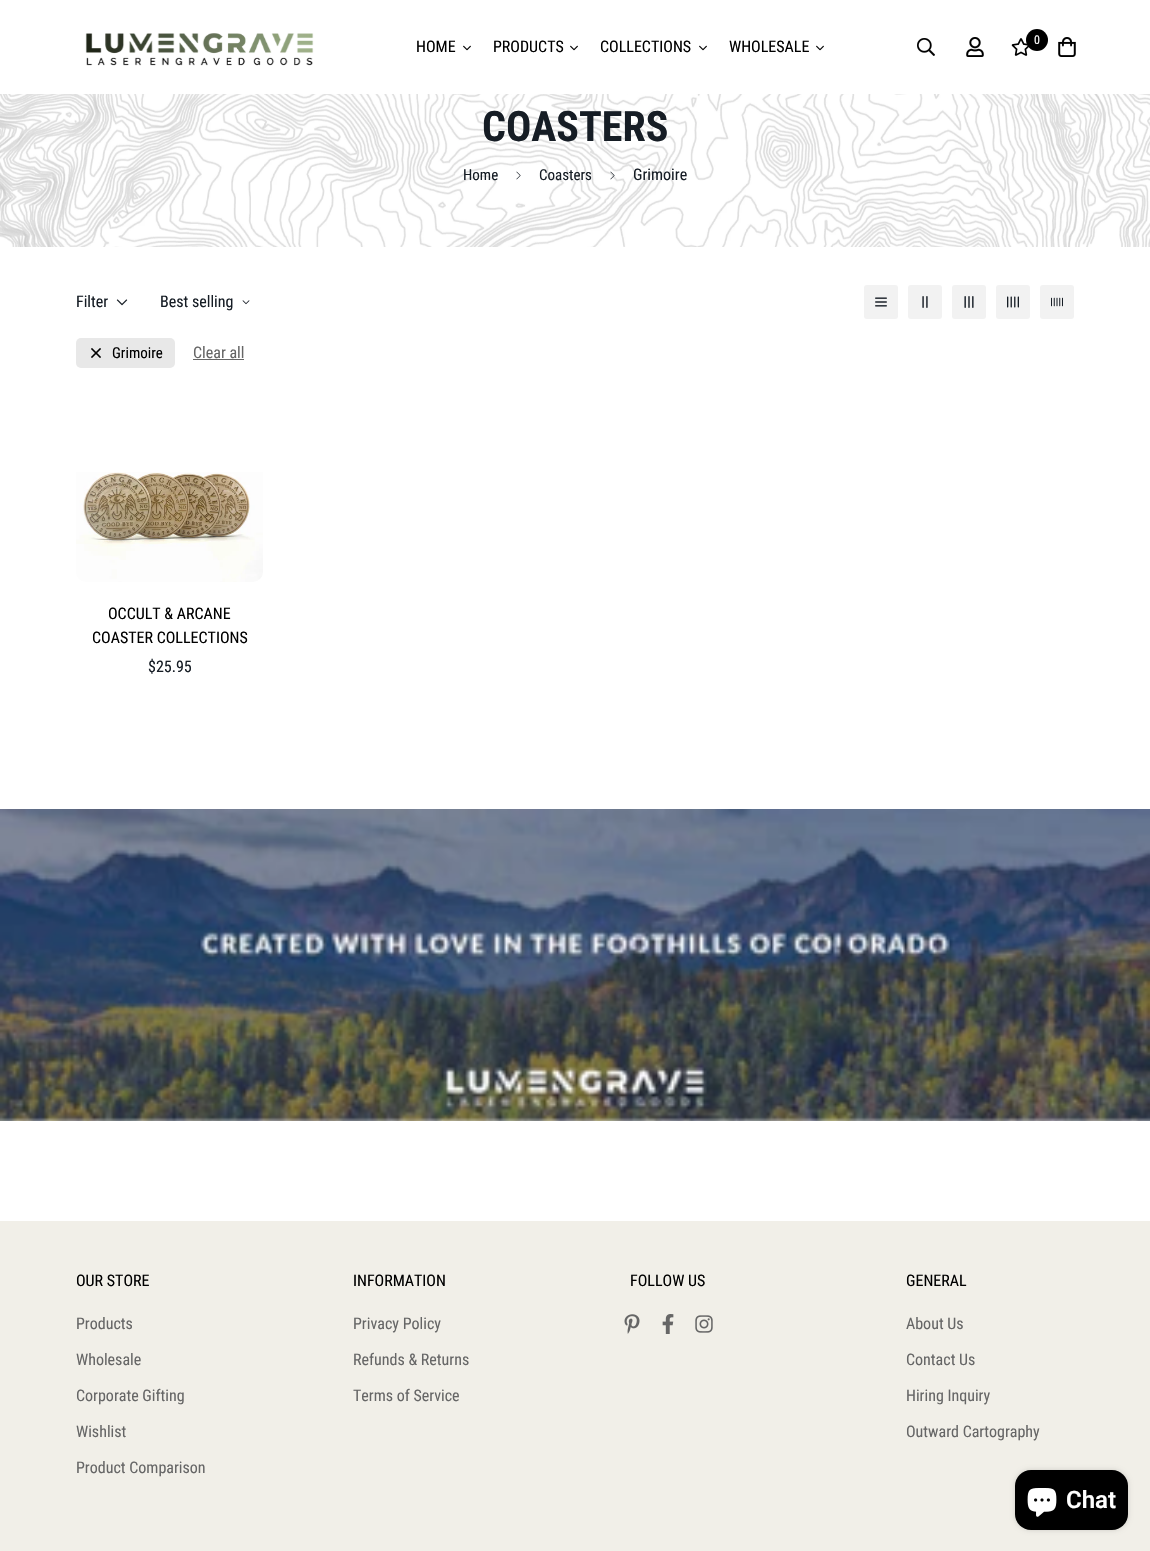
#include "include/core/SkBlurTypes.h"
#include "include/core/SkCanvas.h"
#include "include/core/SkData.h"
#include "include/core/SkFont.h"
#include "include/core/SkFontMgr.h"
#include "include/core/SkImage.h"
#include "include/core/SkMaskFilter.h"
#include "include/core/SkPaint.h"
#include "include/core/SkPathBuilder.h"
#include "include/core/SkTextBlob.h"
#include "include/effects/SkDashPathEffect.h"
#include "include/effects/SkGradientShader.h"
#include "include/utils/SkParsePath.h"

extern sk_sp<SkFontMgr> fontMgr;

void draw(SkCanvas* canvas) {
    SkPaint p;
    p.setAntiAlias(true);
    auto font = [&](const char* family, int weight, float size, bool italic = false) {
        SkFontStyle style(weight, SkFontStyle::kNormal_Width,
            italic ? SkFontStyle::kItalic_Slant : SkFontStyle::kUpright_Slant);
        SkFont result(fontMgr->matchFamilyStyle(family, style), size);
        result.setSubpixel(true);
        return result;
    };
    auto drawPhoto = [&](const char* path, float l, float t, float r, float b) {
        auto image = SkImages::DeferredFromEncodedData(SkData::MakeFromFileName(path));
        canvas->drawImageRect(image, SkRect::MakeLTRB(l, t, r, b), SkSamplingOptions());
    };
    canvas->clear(0xFFFFFFFF);
    drawPhoto("media/1.png", 85, 33, 314, 66);
    auto font1 = font("Roboto Condensed", 400, 16);
    p.setColor(0xFF000000);
    canvas->drawString("HOME", 416, 52, font1, p);
    drawPhoto("media/2.png", 463, 45, 471, 51);
    canvas->drawString("PRODUCTS", 493, 52, font1, p);
    drawPhoto("media/2.png", 570, 45, 578, 51);
    canvas->drawString("COLLECTIONS", 600, 52, font1, p);
    drawPhoto("media/2.png", 699, 45, 707, 51);
    canvas->drawString("WHOLESALE", 729, 52, font1, p);
    drawPhoto("media/2.png", 816, 45, 824, 51);
    drawPhoto("media/3.png", 917, 38, 935, 56);
    drawPhoto("media/4.png", 966, 37, 984, 57);
    drawPhoto("media/5.png", 1011, 38, 1029, 56);
    canvas->drawCircle(1037, 40, 11, p);
    auto font2 = font("Roboto Condensed", 400, 12);
    p.setColor(0xFFFFFFFF);
    canvas->drawString("0", 1034, 44, font2, p);
    drawPhoto("media/6.png", 1058, 37, 1076, 57);
    drawPhoto("media/7.png", 0, 94, 1150, 247);
    auto font3 = font("Roboto Condensed", 700, 42);
    p.setColor(0xFF161D25);
    canvas->drawString("COASTERS", 482, 141, font3, p);
    auto font4 = font("Roboto Condensed", 400, 15);
    canvas->drawString("Home", 463, 180, font4, p);
    drawPhoto("media/8.png", 516, 171, 521, 180);
    canvas->drawString("Coasters", 539, 180, font4, p);
    drawPhoto("media/9.png", 610, 171, 615, 180);
    canvas->drawString("Grimoire", 633, 180, font1, p);
    canvas->drawString("Filter", 76, 307, font1, p);
    drawPhoto("media/10.png", 116, 299, 128, 306);
    canvas->drawString("Best selling", 160, 307, font1, p);
    drawPhoto("media/11.png", 242, 300, 250, 305);
    p.setColor(0xFFF2F2F2);
    canvas->drawRoundRect(SkRect::MakeLTRB(864, 285, 898, 319), 3, 3, p);
    drawPhoto("media/12.png", 875, 297, 887, 307);
    canvas->drawRoundRect(SkRect::MakeLTRB(908, 285, 942, 319), 3, 3, p);
    drawPhoto("media/13.png", 922, 296, 928, 308);
    canvas->drawRoundRect(SkRect::MakeLTRB(952, 285, 986, 319), 3, 3, p);
    drawPhoto("media/14.png", 964, 296, 974, 308);
    canvas->drawRoundRect(SkRect::MakeLTRB(996, 285, 1030, 319), 3, 3, p);
    drawPhoto("media/15.png", 1007, 296, 1019, 308);
    canvas->drawRoundRect(SkRect::MakeLTRB(1040, 285, 1074, 319), 3, 3, p);
    drawPhoto("media/16.png", 1051, 297, 1063, 307);
    p.setColor(0xFFE8E8E8);
    canvas->drawRoundRect(SkRect::MakeLTRB(76, 338, 175, 368), 5, 5, p);
    drawPhoto("media/17.png", 91, 348, 101, 358);
    p.setColor(0xFF000000);
    canvas->drawString("Grimoire", 112, 358, font4, p);
    p.setColor(0xFF666666);
    canvas->drawString("Clear all", 193, 358, font1, p);
    canvas->drawRect(SkRect::MakeLTRB(193, 359, 244, 360), p);
    drawPhoto("media/18.png", 76, 472, 263, 582);
    p.setColor(0xFF000000);
    canvas->drawString("OCCULT & ARCANE", 108, 619, font1, p);
    canvas->drawString("COASTER COLLECTIONS", 92, 643, font1, p);
    p.setColor(0xFF161D25);
    canvas->drawString("$25.95", 148, 672, font1, p);
    drawPhoto("media/19.png", 0, 809, 1150, 1121);
    p.setColor(0xFFF1EFE8);
    canvas->drawRect(SkRect::MakeLTRB(0, 1221, 1150, 1551), p);
    p.setColor(0xFF000000);
    canvas->drawString("OUR STORE", 76, 1286, font1, p);
    p.setColor(0xFF666666);
    {
        const struct { const char* s; float x, y; } items[] = {
            {"Products", 76, 1329},
            {"Wholesale", 76, 1365},
            {"Corporate Gifting", 76, 1401},
            {"Wishlist", 76, 1437},
            {"Product Comparison", 76, 1473},
        };
        for (auto [s, x, y] : items) {
            canvas->drawString(s, x, y, font1, p);
        }
    }
    p.setColor(0xFF000000);
    canvas->drawString("INFORMATION", 353, 1286, font1, p);
    p.setColor(0xFF666666);
    {
        const struct { const char* s; float x, y; } items[] = {
            {"Privacy Policy", 353, 1329},
            {"Refunds & Returns", 353, 1365},
            {"Terms of Service", 353, 1401},
        };
        for (auto [s, x, y] : items) {
            canvas->drawString(s, x, y, font1, p);
        }
    }
    p.setColor(0xFF000000);
    canvas->drawString("FOLLOW US", 630, 1286, font1, p);
    drawPhoto("media/20.png", 624, 1314, 640, 1334);
    drawPhoto("media/21.png", 662, 1314, 674, 1334);
    drawPhoto("media/22.png", 695, 1315, 713, 1333);
    canvas->drawString("GENERAL", 906, 1286, font1, p);
    p.setColor(0xFF666666);
    {
        const struct { const char* s; float x, y; } items[] = {
            {"About Us", 906, 1329},
            {"Contact Us", 906, 1365},
            {"Hiring Inquiry", 906, 1401},
            {"Outward Cartography", 906, 1437},
        };
        for (auto [s, x, y] : items) {
            canvas->drawString(s, x, y, font1, p);
        }
    }
    p.setColor(0x26000000);
    p.setMaskFilter(SkMaskFilter::MakeBlur(kNormal_SkBlurStyle, 2.5f));
    canvas->drawRoundRect(SkRect::MakeLTRB(1015, 1470, 1128, 1530), 16, 16, p);
    p.setMaskFilter(nullptr);
    p.setColor(0xFF000000);
    canvas->drawRoundRect(SkRect::MakeLTRB(1015, 1470, 1128, 1530), 16, 16, p);
    drawPhoto("media/23.png", 1027, 1488, 1057, 1517);
    auto font5 = font("Roboto", 600, 24);
    p.setColor(0xFFFFFFFF);
    canvas->drawString("Chat", 1066, 1508, font5, p);
}
